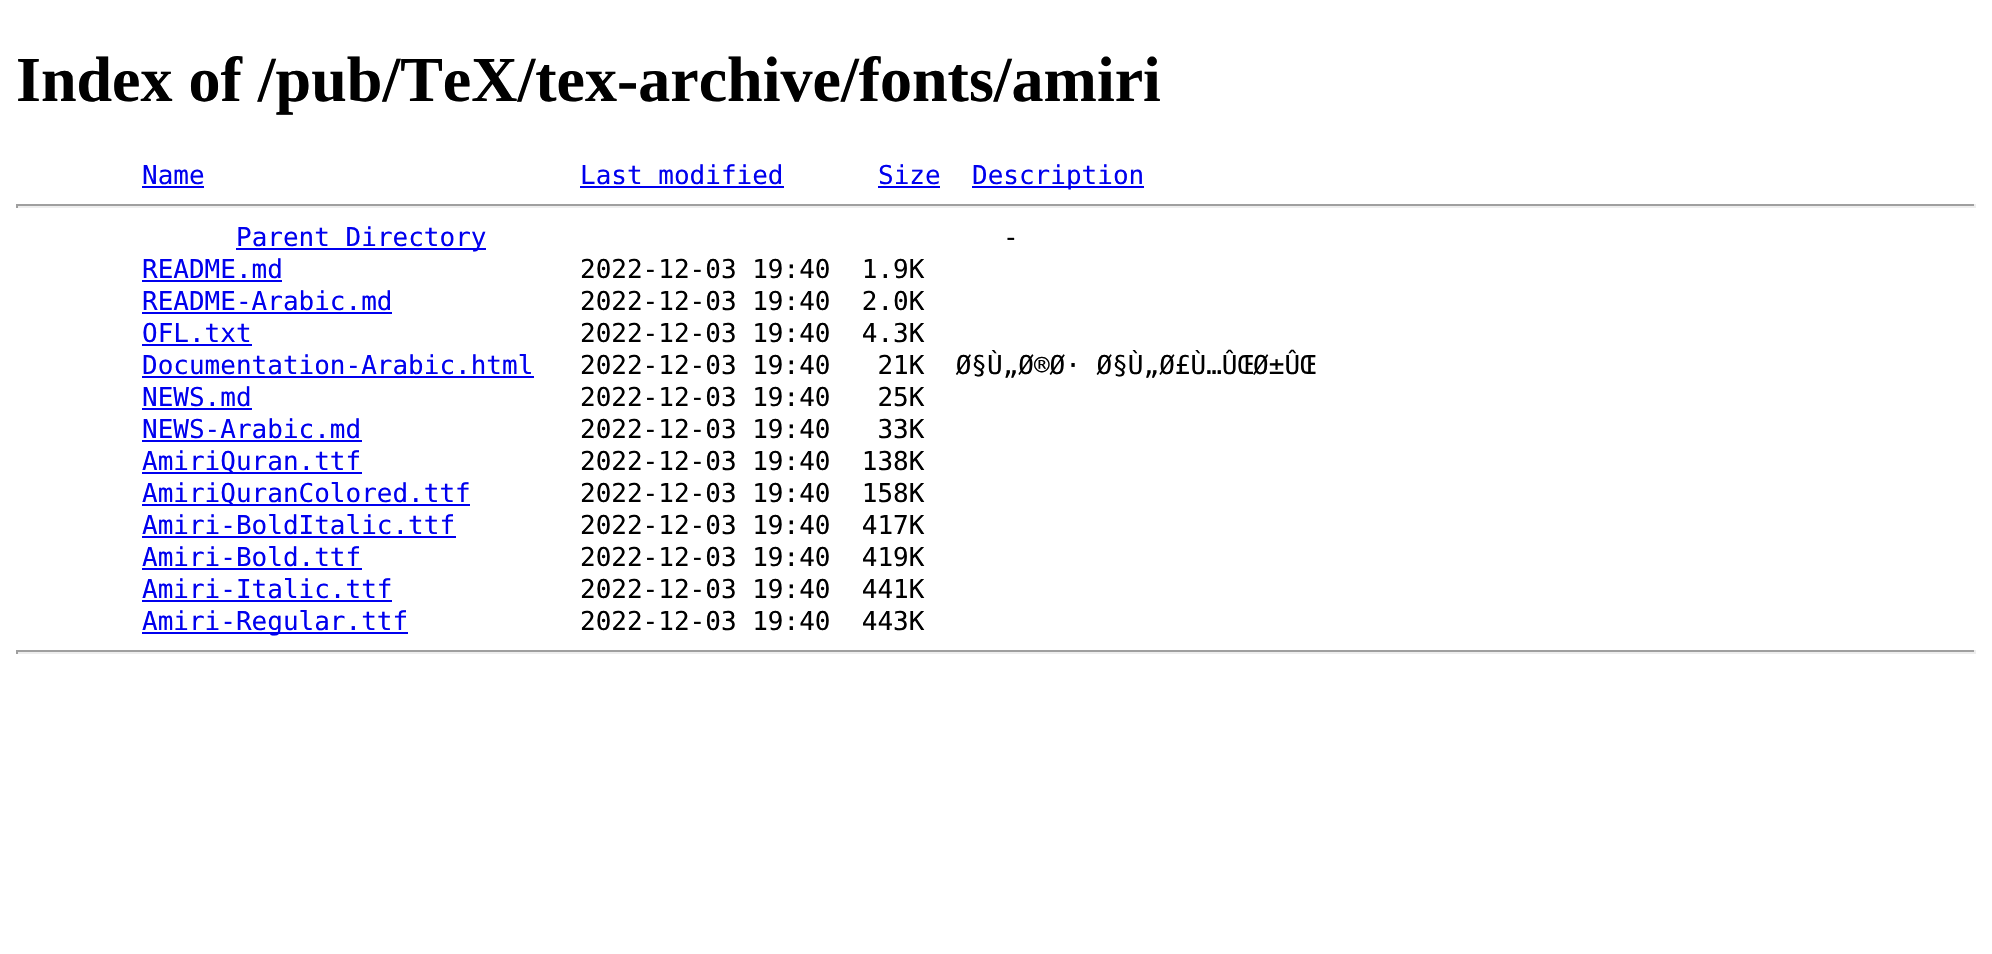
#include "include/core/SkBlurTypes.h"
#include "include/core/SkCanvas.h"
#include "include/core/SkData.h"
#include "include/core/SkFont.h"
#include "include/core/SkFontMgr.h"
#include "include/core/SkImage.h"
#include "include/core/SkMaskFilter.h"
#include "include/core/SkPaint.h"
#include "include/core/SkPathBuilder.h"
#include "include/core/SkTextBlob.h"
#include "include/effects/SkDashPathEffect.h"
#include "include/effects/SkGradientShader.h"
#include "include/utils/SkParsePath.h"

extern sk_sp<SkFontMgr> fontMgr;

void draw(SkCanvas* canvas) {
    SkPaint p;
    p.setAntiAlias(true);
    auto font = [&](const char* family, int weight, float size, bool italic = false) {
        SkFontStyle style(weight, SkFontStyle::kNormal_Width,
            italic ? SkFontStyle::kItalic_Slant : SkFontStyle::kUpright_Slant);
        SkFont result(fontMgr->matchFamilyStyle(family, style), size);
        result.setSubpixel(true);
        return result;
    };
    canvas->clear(0xFFFFFFFF);
    auto font1 = font("Liberation Serif", 700, 64);
    p.setColor(0xFF000000);
    canvas->drawString("Index of /pub/TeX/tex-archive/fonts/amiri", 16, 101, font1, p);
    auto font2 = font("DejaVu Sans Mono", 400, 26);
    p.setColor(0xFF0000EE);
    canvas->drawString("Name", 142, 184, font2, p);
    canvas->drawRect(SkRect::MakeLTRB(142, 186, 204, 188), p);
    canvas->drawString("Last modified", 580, 184, font2, p);
    canvas->drawRect(SkRect::MakeLTRB(580, 186, 784, 188), p);
    canvas->drawString("Size", 878, 184, font2, p);
    canvas->drawRect(SkRect::MakeLTRB(878, 186, 940, 188), p);
    canvas->drawRect(SkRect::MakeLTRB(972, 186, 1144, 188), p);
    canvas->drawString("Description", 972, 184, font2, p);
    {
        const struct { float l, t, r, b; SkColor color; } items[] = {
            {16, 204, 1976, 206, 0xFF9F9F9F},
            {1974, 204, 1976, 208, 0xFFEEEEEE},
            {16, 206, 1976, 208, 0xFFEEEEEE},
            {16, 204, 18, 208, 0xFF9F9F9F},
            {236, 248, 486, 250, 0xFF0000EE},
        };
        for (auto [l, t, r, b, color] : items) {
            p.setColor(color);
            canvas->drawRect(SkRect::MakeLTRB(l, t, r, b), p);
        }
    }
    canvas->drawString("Parent Directory", 236, 246, font2, p);
    p.setColor(0xFF000000);
    canvas->drawString("-", 1003, 246, font2, p);
    p.setColor(0xFF0000EE);
    canvas->drawString("README.md", 142, 278, font2, p);
    canvas->drawRect(SkRect::MakeLTRB(142, 280, 282, 282), p);
    p.setColor(0xFF000000);
    canvas->drawString("2022-12-03 19:40  1.9K", 580, 278, font2, p);
    p.setColor(0xFF0000EE);
    canvas->drawString("README-Arabic.md", 142, 310, font2, p);
    canvas->drawRect(SkRect::MakeLTRB(142, 312, 392, 314), p);
    p.setColor(0xFF000000);
    canvas->drawString("2022-12-03 19:40  2.0K", 580, 310, font2, p);
    p.setColor(0xFF0000EE);
    canvas->drawString("OFL.txt", 142, 342, font2, p);
    canvas->drawRect(SkRect::MakeLTRB(142, 344, 252, 346), p);
    p.setColor(0xFF000000);
    canvas->drawString("2022-12-03 19:40  4.3K", 580, 342, font2, p);
    p.setColor(0xFF0000EE);
    canvas->drawString("Documentation-Arabic.html", 142, 374, font2, p);
    canvas->drawRect(SkRect::MakeLTRB(142, 376, 534, 378), p);
    p.setColor(0xFF000000);
    canvas->drawString("2022-12-03 19:40   21K  Ø§Ù„Ø®Ø· Ø§Ù„Ø£Ù…ÛŒØ±ÛŒ", 580, 374, font2, p);
    p.setColor(0xFF0000EE);
    canvas->drawString("NEWS.md", 142, 406, font2, p);
    canvas->drawRect(SkRect::MakeLTRB(142, 408, 252, 410), p);
    p.setColor(0xFF000000);
    canvas->drawString("2022-12-03 19:40   25K", 580, 406, font2, p);
    p.setColor(0xFF0000EE);
    canvas->drawString("NEWS-Arabic.md", 142, 438, font2, p);
    canvas->drawRect(SkRect::MakeLTRB(142, 440, 362, 442), p);
    p.setColor(0xFF000000);
    canvas->drawString("2022-12-03 19:40   33K", 580, 438, font2, p);
    p.setColor(0xFF0000EE);
    canvas->drawRect(SkRect::MakeLTRB(142, 472, 362, 474), p);
    canvas->drawString("AmiriQuran.ttf", 142, 470, font2, p);
    p.setColor(0xFF000000);
    canvas->drawString("2022-12-03 19:40  138K", 580, 470, font2, p);
    p.setColor(0xFF0000EE);
    canvas->drawRect(SkRect::MakeLTRB(142, 504, 470, 506), p);
    canvas->drawString("AmiriQuranColored.ttf", 142, 502, font2, p);
    p.setColor(0xFF000000);
    canvas->drawString("2022-12-03 19:40  158K", 580, 502, font2, p);
    p.setColor(0xFF0000EE);
    canvas->drawString("Amiri-BoldItalic.ttf", 142, 534, font2, p);
    canvas->drawRect(SkRect::MakeLTRB(142, 536, 456, 538), p);
    p.setColor(0xFF000000);
    canvas->drawString("2022-12-03 19:40  417K", 580, 534, font2, p);
    p.setColor(0xFF0000EE);
    canvas->drawString("Amiri-Bold.ttf", 142, 566, font2, p);
    canvas->drawRect(SkRect::MakeLTRB(142, 568, 362, 570), p);
    p.setColor(0xFF000000);
    canvas->drawString("2022-12-03 19:40  419K", 580, 566, font2, p);
    p.setColor(0xFF0000EE);
    canvas->drawString("Amiri-Italic.ttf", 142, 598, font2, p);
    canvas->drawRect(SkRect::MakeLTRB(142, 600, 392, 602), p);
    p.setColor(0xFF000000);
    canvas->drawString("2022-12-03 19:40  441K", 580, 598, font2, p);
    p.setColor(0xFF0000EE);
    canvas->drawRect(SkRect::MakeLTRB(142, 632, 408, 634), p);
    canvas->drawString("Amiri-Regular.ttf", 142, 630, font2, p);
    p.setColor(0xFF000000);
    canvas->drawString("2022-12-03 19:40  443K", 580, 630, font2, p);
    {
        const struct { float l, t, r, b; SkColor color; } items[] = {
            {16, 650, 1976, 652, 0xFF9F9F9F},
            {1974, 650, 1976, 654, 0xFFEEEEEE},
            {16, 652, 1976, 654, 0xFFEEEEEE},
            {16, 650, 18, 654, 0xFF9F9F9F},
        };
        for (auto [l, t, r, b, color] : items) {
            p.setColor(color);
            canvas->drawRect(SkRect::MakeLTRB(l, t, r, b), p);
        }
    }
}
